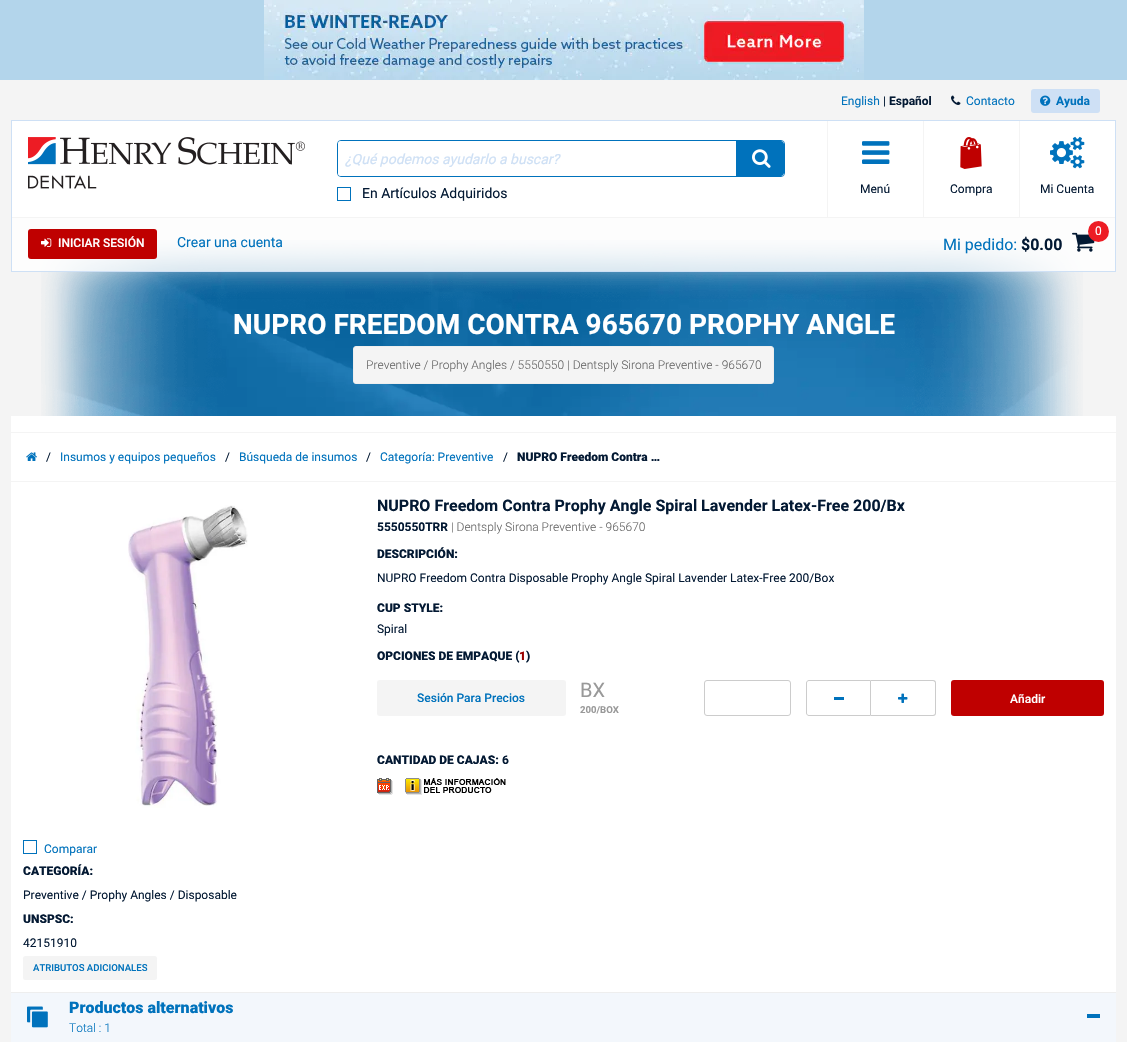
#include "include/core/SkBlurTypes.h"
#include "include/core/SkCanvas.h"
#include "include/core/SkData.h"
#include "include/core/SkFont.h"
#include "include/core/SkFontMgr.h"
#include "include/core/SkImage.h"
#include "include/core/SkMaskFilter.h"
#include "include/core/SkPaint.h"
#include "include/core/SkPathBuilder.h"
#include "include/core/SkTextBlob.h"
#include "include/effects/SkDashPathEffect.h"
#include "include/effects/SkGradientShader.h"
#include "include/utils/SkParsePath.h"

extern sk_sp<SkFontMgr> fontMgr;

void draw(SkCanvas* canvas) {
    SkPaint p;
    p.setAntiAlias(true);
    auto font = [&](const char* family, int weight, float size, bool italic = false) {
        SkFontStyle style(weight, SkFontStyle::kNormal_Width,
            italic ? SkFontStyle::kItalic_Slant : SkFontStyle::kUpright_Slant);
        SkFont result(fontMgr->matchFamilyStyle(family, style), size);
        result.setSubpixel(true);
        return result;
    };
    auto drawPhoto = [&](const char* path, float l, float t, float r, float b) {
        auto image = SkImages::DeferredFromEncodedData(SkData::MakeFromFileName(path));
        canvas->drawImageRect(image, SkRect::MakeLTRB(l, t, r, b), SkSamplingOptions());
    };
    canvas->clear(0xFFF4F4F4);
    p.setColor(0xFFB3D5EB);
    canvas->drawRect(SkRect::MakeLTRB(0, 0, 1127, 80), p);
    drawPhoto("media/1.png", 264, 0, 864, 80);
    auto font1 = font("Roboto", 400, 12);
    p.setColor(0xFF0072BC);
    canvas->drawString("English", 841, 105, font1, p);
    p.setColor(0xFF031933);
    canvas->drawString("|", 883, 105, font1, p);
    auto font2 = font("Roboto", 700, 12);
    canvas->drawString("Español", 889, 105, font2, p);
    drawPhoto("media/2.png", 951, 95, 961, 105);
    p.setColor(0xFF0072BC);
    canvas->drawString("Contacto", 966, 105, font1, p);
    p.setColor(0xFFCEE0F5);
    canvas->drawRoundRect(SkRect::MakeLTRB(1031, 89, 1100, 113), 3, 3, p);
    drawPhoto("media/3.png", 1040, 95, 1051, 106);
    p.setColor(0xFF0072BC);
    canvas->drawString("Ayuda", 1056, 105, font2, p);
    drawPhoto("media/11.png", 41, 240, 1083, 416);
    p.setStyle(SkPaint::kStroke_Style);
    p.setStrokeWidth(1);
    p.setColor(0xFFCEE0F5);
    canvas->drawRect(SkRect::MakeLTRB(11.5f, 120.5f, 1115.5f, 271.5f), p);
    p.setStyle(SkPaint::kFill_Style);
    p.setColor(0xFFFFFFFF);
    canvas->drawRect(SkRect::MakeLTRB(12, 121, 1115, 217), p);
    drawPhoto("media/4.png", 28, 137, 305, 189);
    p.setStyle(SkPaint::kStroke_Style);
    p.setColor(0xFF0072BC);
    canvas->drawRoundRect(SkRect::MakeLTRB(337.5f, 140.5f, 784.5f, 176.5f), 3.5f, 3.5f, p);
    p.setStyle(SkPaint::kFill_Style);
    p.setColor(0xFFFFFFFF);
    canvas->drawRoundRect(SkRect::MakeLTRB(338, 141, 784, 176), 3, 3, p);
    auto font3 = font("Roboto", 400, 14, true);
    p.setColor(0xFFCEE0F5);
    canvas->drawString("¿Qué podemos ayudarlo a buscar?", 345, 164, font3, p);
    p.setColor(0xFF0072BC);
    canvas->drawPath(SkPathBuilder().moveTo(736, 141).lineTo(781, 141).cubicTo(782.5f, 141, 784, 142.5f, 784, 144).lineTo(784, 173).cubicTo(784, 174.5f, 782.5f, 176, 781, 176).lineTo(736, 176).close().detach(), p);
    drawPhoto("media/5.png", 752, 149, 771, 168);
    p.setStyle(SkPaint::kStroke_Style);
    canvas->drawRect(SkRect::MakeLTRB(337.5f, 187.5f, 350.5f, 200.5f), p);
    auto font4 = font("Roboto", 400, 14);
    p.setStyle(SkPaint::kFill_Style);
    p.setColor(0xFF031933);
    canvas->drawString("En Artículos Adquiridos", 362, 198, font4, p);
    p.setColor(0xFFF4F4F4);
    canvas->drawRect(SkRect::MakeLTRB(827, 121, 828, 217), p);
    drawPhoto("media/6.png", 862, 141, 890, 164);
    p.setColor(0xFF031933);
    canvas->drawString("Menú", 860, 193, font1, p);
    p.setColor(0xFFF4F4F4);
    canvas->drawRect(SkRect::MakeLTRB(923, 121, 924, 217), p);
    drawPhoto("media/7.png", 960, 137, 982, 169);
    p.setColor(0xFF031933);
    canvas->drawString("Compra", 950, 193, font1, p);
    p.setColor(0xFFF4F4F4);
    canvas->drawRect(SkRect::MakeLTRB(1019, 121, 1020, 217), p);
    drawPhoto("media/8.png", 1050, 136, 1085, 169);
    p.setColor(0xFF031933);
    canvas->drawString("Mi Cuenta", 1040, 193, font1, p);
    p.setColor(0xCCFFFFFF);
    canvas->drawRect(SkRect::MakeLTRB(12, 218, 1115, 271), p);
    p.setColor(0xFFBF0000);
    canvas->drawRoundRect(SkRect::MakeLTRB(28, 229, 157, 259), 3, 3, p);
    drawPhoto("media/9.png", 41, 238, 52, 247);
    auto font5 = font("Roboto", 500, 12);
    p.setColor(0xFFFFFFFF);
    canvas->drawString("INICIAR SESIÓN", 58, 247, font5, p);
    p.setColor(0xFF0072BC);
    canvas->drawString("Crear una cuenta", 177, 247, font4, p);
    drawPhoto("media/10.png", 1072, 232, 1095, 252);
    p.setColor(0xFFED1C24);
    canvas->drawCircle(1098.5f, 231.5f, 10.5f, p);
    p.setColor(0xFFFFFFFF);
    canvas->drawString("0", 1095, 235, font1, p);
    auto font6 = font("Roboto", 400, 16);
    p.setColor(0xFF0072BC);
    canvas->drawString("Mi pedido:", 943, 250, font6, p);
    auto font7 = font("Roboto", 700, 16);
    p.setColor(0xFF031933);
    canvas->drawString("$0.00", 1021, 250, font7, p);
    auto font8 = font("Roboto", 700, 28);
    p.setColor(0xFFFFFFFF);
    canvas->drawString("NUPRO FREEDOM CONTRA 965670 PROPHY ANGLE", 233, 334, font8, p);
    p.setColor(0xFFF4F4F4);
    canvas->drawRoundRect(SkRect::MakeLTRB(353.5f, 346.5f, 773.5f, 383.5f), 2.5f, 2.5f, p);
    p.setStyle(SkPaint::kStroke_Style);
    p.setColor(0xFFEEEEEE);
    canvas->drawRoundRect(SkRect::MakeLTRB(353.5f, 346.5f, 773.5f, 383.5f), 2.5f, 2.5f, p);
    auto font9 = font("Roboto", 300, 12);
    p.setStyle(SkPaint::kFill_Style);
    p.setColor(0xFF666666);
    canvas->drawString("Preventive / Prophy Angles / 5550550 | Dentsply Sirona Preventive - 965670", 366, 369, font9, p);
    {
        const struct { float l, t, r, b; SkColor color; } items[] = {
            {11, 416, 1116, 992, 0xFFFFFFFF},
            {11, 432, 1116, 433, 0xFFF4F4F4},
            {11, 481, 1116, 482, 0xFFF4F4F4},
        };
        for (auto [l, t, r, b, color] : items) {
            p.setColor(color);
            canvas->drawRect(SkRect::MakeLTRB(l, t, r, b), p);
        }
    }
    drawPhoto("media/12.png", 26, 452, 37, 461);
    p.setColor(0xFF031933);
    canvas->drawString("/", 46, 461, font1, p);
    p.setColor(0xFF0072BC);
    canvas->drawString("Insumos y equipos pequeños", 60, 461, font1, p);
    p.setColor(0xFF031933);
    canvas->drawString("/", 225, 461, font1, p);
    p.setColor(0xFF0072BC);
    canvas->drawString("Búsqueda de insumos", 239, 461, font1, p);
    p.setColor(0xFF031933);
    canvas->drawString("/", 366, 461, font1, p);
    p.setColor(0xFF0072BC);
    canvas->drawString("Categoría: Preventive", 380, 461, font1, p);
    p.setColor(0xFF031933);
    canvas->drawString("/", 503, 461, font1, p);
    auto font10 = font("Roboto", 900, 12);
    canvas->drawString("NUPRO Freedom Contra …", 517, 461, font10, p);
    canvas->drawString("NUPRO Freedom Contra Prophy Angle Spiral Lavender Latex-Free 200/Bx", 377, 511, font7, p);
    canvas->drawString("5550550TRR", 377, 531, font2, p);
    p.setColor(0xFF666666);
    canvas->drawString("| Dentsply Sirona Preventive - 965670", 451, 531, font9, p);
    p.setColor(0xFF031933);
    canvas->drawString("DESCRIPCIÓN:", 377, 558, font10, p);
    canvas->drawString("NUPRO Freedom Contra Disposable Prophy Angle Spiral Lavender Latex-Free 200/Box", 377, 582, font1, p);
    canvas->drawString("CUP STYLE:", 377, 612, font10, p);
    canvas->drawString("Spiral", 377, 633, font1, p);
    canvas->drawString("OPCIONES DE EMPAQUE (", 377, 660, font10, p);
    p.setColor(0xFF990000);
    canvas->drawString("1", 519, 660, font10, p);
    p.setColor(0xFF031933);
    canvas->drawString(")", 526, 660, font10, p);
    p.setColor(0xFFF4F4F4);
    canvas->drawRoundRect(SkRect::MakeLTRB(377, 680, 566, 716), 3, 3, p);
    p.setColor(0xFF0072BC);
    canvas->drawString("Sesión Para Precios", 417, 702, font5, p);
    auto font11 = font("Roboto", 400, 20);
    p.setColor(0xFF999999);
    canvas->drawString("BX", 580, 697, font11, p);
    auto font12 = font("Roboto", 700, 9.6f);
    canvas->drawString("200/BOX", 580, 713, font12, p);
    p.setStyle(SkPaint::kStroke_Style);
    p.setColor(0xFFCCCCCC);
    canvas->drawRoundRect(SkRect::MakeLTRB(704.5f, 680.5f, 790.5f, 715.5f), 2.5f, 2.5f, p);
    canvas->drawPath(SkPathBuilder().moveTo(809, 680.5f).lineTo(870.5f, 680.5f).lineTo(870.5f, 715.5f).lineTo(809, 715.5f).cubicTo(807.5f, 715.5f, 806.5f, 714.5f, 806.5f, 713).lineTo(806.5f, 683).cubicTo(806.5f, 681.5f, 807.5f, 680.5f, 809, 680.5f).close().detach(), p);
    p.setStyle(SkPaint::kFill_Style);
    p.setColor(0xFF0072BC);
    canvas->drawRect(SkRect::MakeLTRB(834, 697, 844, 700), p);
    p.setColor(0xFFCCCCCC);
    canvas->drawPath(SkPathBuilder(SkPathFillType::kEvenOdd).moveTo(871, 680).lineTo(933, 680).cubicTo(935, 680, 936, 681, 936, 683).lineTo(936, 713).cubicTo(936, 715, 935, 716, 933, 716).lineTo(871, 716).close().moveTo(871, 681).lineTo(933, 681).cubicTo(934, 681, 935, 682, 935, 683).lineTo(935, 713).cubicTo(935, 714, 934, 715, 933, 715).lineTo(871, 715).close().detach(), p);
    drawPhoto("media/13.png", 898, 693, 908, 703);
    p.setColor(0xFFBF0000);
    canvas->drawRoundRect(SkRect::MakeLTRB(951, 680, 1104, 716), 3, 3, p);
    p.setColor(0xFFFFFFFF);
    canvas->drawString("Añadir", 1010, 703, font5, p);
    p.setColor(0xFF031933);
    canvas->drawString("CANTIDAD DE CAJAS:", 377, 764, font10, p);
    canvas->drawString("6", 502, 764, font2, p);
    drawPhoto("media/14.png", 377, 778, 393, 795);
    drawPhoto("media/15.png", 405, 778, 506, 795);
    drawPhoto("media/16.png", 128, 505, 248, 808);
    p.setStyle(SkPaint::kStroke_Style);
    p.setColor(0xFF0072BC);
    canvas->drawRect(SkRect::MakeLTRB(23.5f, 840.5f, 36.5f, 853.5f), p);
    p.setStyle(SkPaint::kFill_Style);
    canvas->drawString("Comparar", 44, 853, font1, p);
    p.setColor(0xFF031933);
    canvas->drawString("CATEGORÍA:", 23, 875, font10, p);
    canvas->drawString("Preventive / Prophy Angles / Disposable", 23, 899, font1, p);
    canvas->drawString("UNSPSC:", 23, 923, font10, p);
    canvas->drawString("42151910", 23, 947, font1, p);
    p.setColor(0xFFF4F4F4);
    canvas->drawRoundRect(SkRect::MakeLTRB(23, 956, 157, 980), 2.5f, 2.5f, p);
    auto font13 = font("Roboto", 500, 9.6f);
    p.setColor(0xFF0072BC);
    canvas->drawString("ATRIBUTOS ADICIONALES", 33, 971, font13, p);
    p.setColor(0xFFF3F7FC);
    canvas->drawRect(SkRect::MakeLTRB(11, 993, 1116, 1042), p);
    p.setColor(0xFFEEEEEE);
    canvas->drawRect(SkRect::MakeLTRB(11, 992, 1116, 993), p);
    drawPhoto("media/17.png", 27, 1006, 48, 1028);
    auto font14 = font("Roboto", 900, 16);
    p.setColor(0xFF0072BC);
    canvas->drawString("Productos alternativos", 69, 1013, font14, p);
    canvas->drawRect(SkRect::MakeLTRB(1087, 1014, 1100, 1018), p);
    canvas->drawString("Total : 1", 69, 1032, font9, p);
}
